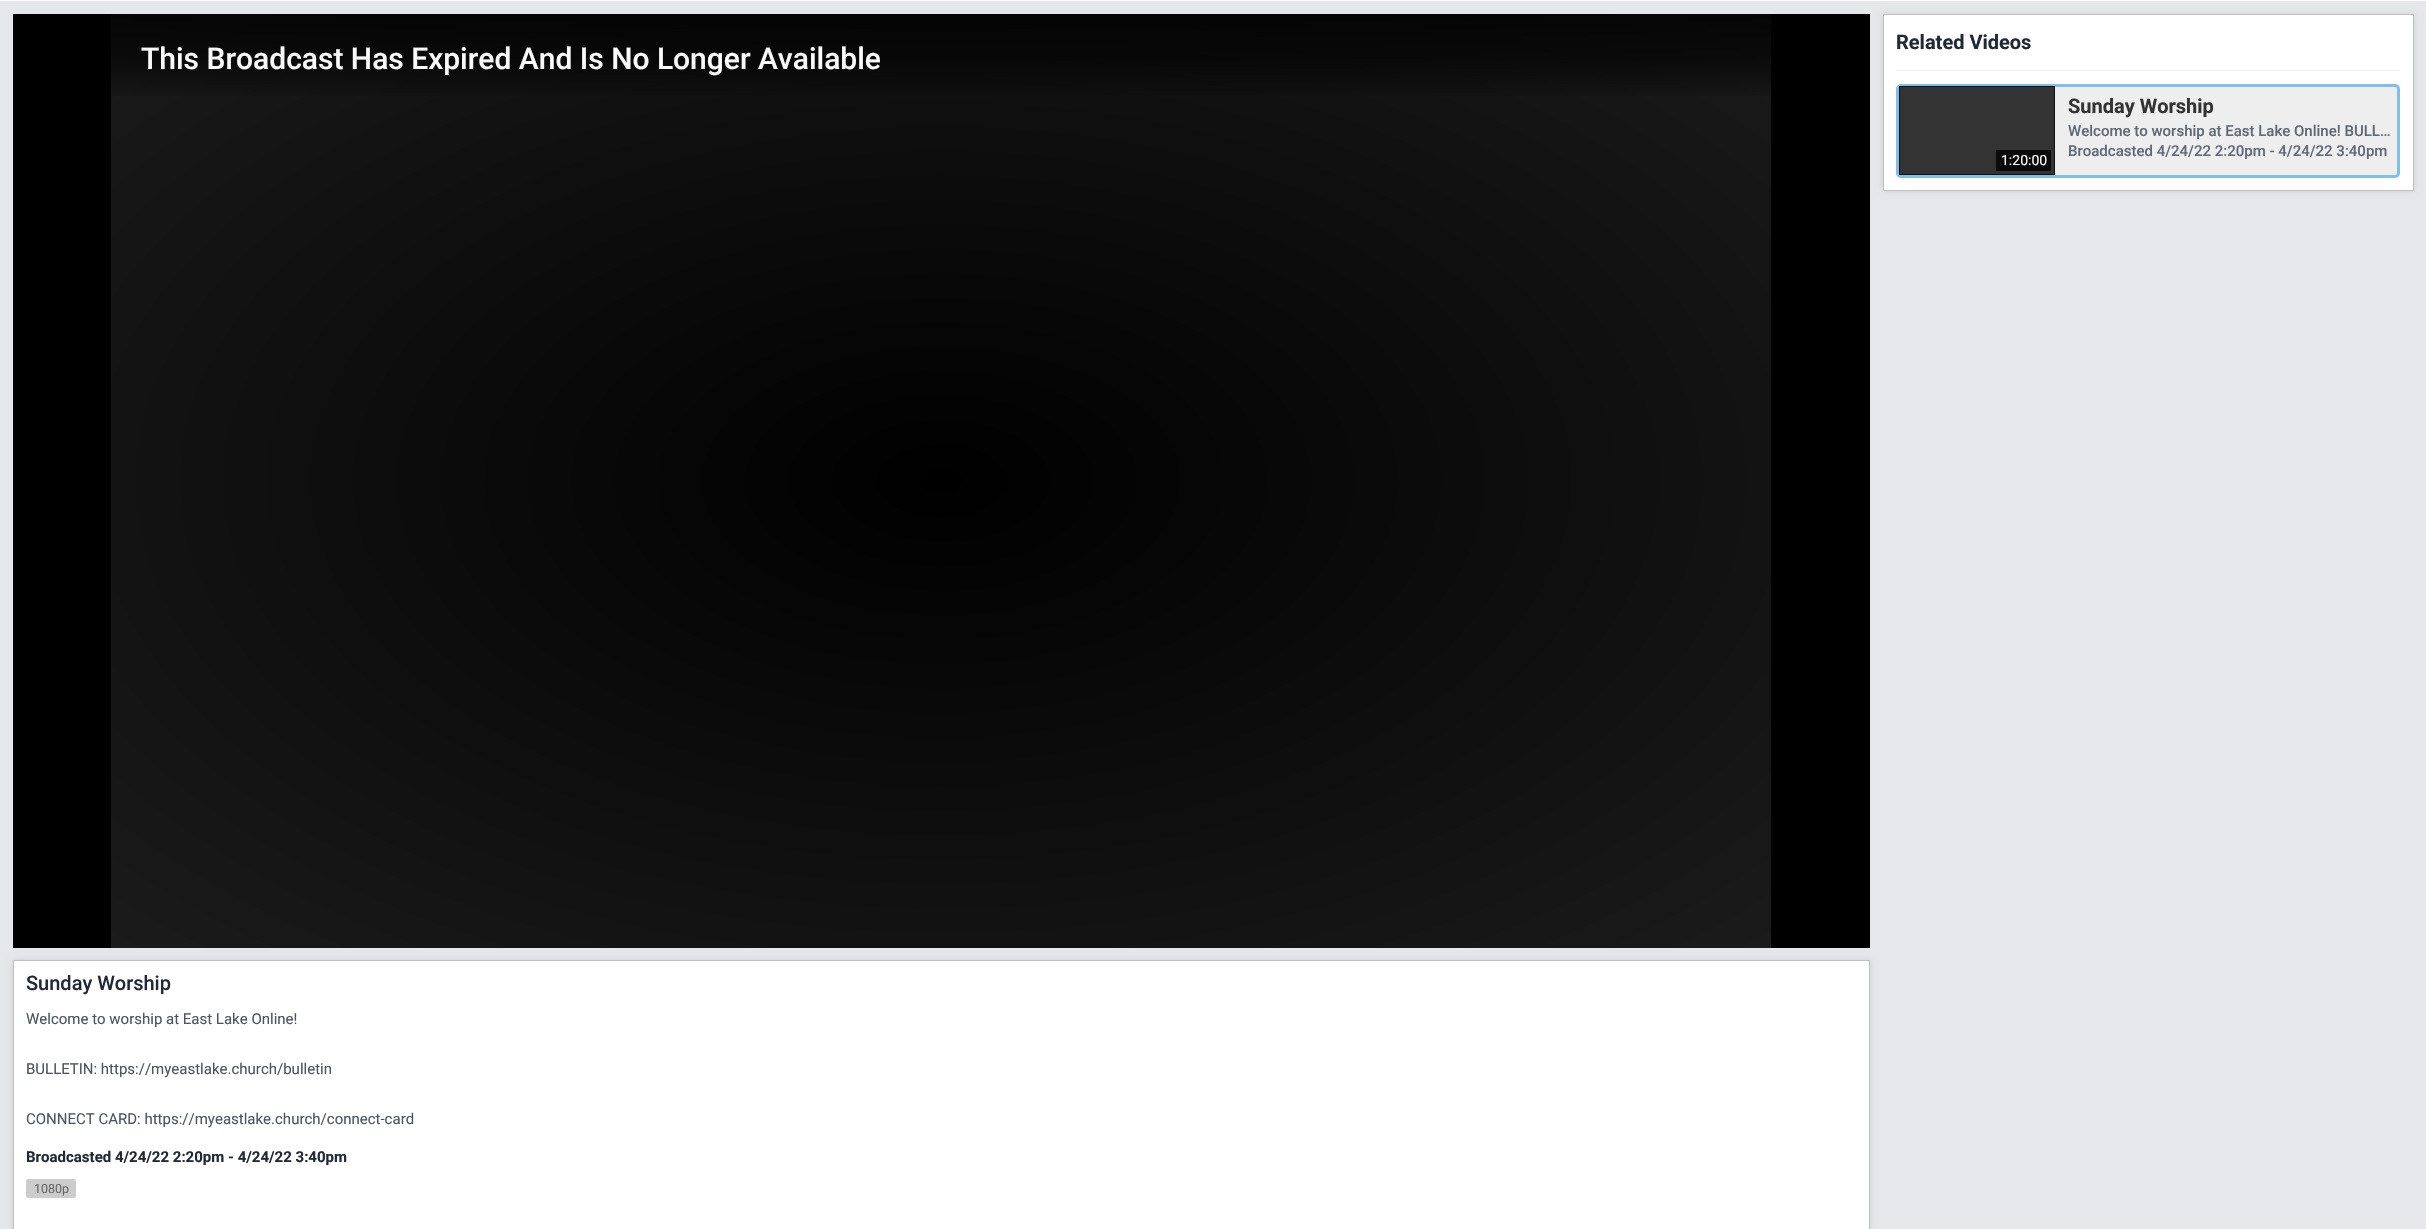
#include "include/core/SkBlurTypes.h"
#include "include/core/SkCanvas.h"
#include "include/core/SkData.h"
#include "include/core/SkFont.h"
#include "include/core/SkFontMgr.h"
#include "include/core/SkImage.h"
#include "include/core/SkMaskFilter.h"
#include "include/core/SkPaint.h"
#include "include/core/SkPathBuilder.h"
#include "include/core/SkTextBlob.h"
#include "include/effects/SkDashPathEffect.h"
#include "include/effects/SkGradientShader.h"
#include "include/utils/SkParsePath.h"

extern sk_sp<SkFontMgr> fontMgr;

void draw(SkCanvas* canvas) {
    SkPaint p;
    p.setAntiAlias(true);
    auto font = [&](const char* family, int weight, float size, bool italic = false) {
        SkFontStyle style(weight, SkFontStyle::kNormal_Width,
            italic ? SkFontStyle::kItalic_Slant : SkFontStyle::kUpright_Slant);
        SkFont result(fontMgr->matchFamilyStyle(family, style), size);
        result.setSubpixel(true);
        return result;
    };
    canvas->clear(0xFFFFFFFF);
    p.setColor(0xFFE5E7EB);
    canvas->drawRect(SkRect::MakeLTRB(0, 1, 2426, 1229), p);
    p.setColor(0xFF000000);
    canvas->drawRect(SkRect::MakeLTRB(13, 14, 1870, 948), p);
    {
        const SkColor colors[] = {0xFF000000, 0xFF1B1B1B};
        const float stops[] = {0, 1};
        SkMatrix m = SkMatrix::Translate(941, 481).preScale(1174, 660);
        p.setShader(SkGradientShader::MakeRadial({0, 0}, 1, colors, stops, 2, SkTileMode::kClamp, 0, &m));
        p.setAlpha(255);
    }
    canvas->drawRect(SkRect::MakeLTRB(111, 14, 1771, 948), p);
    {
        const SkColor colors[] = {0xCC000000, 0x99000000, 0x00000000};
        const float stops[] = {0, 0.5f, 1};
        const SkPoint ends[] = {{941, 14}, {941, 104}};
        p.setShader(SkGradientShader::MakeLinear(ends, colors, stops, 3, SkTileMode::kClamp));
        p.setAlpha(255);
    }
    canvas->drawRect(SkRect::MakeLTRB(111, 14, 1771, 96), p);
    auto font1 = font("Roboto", 500, 30);
    p.setShader(nullptr);
    p.setColor(0xFFFAFAFA);
    canvas->drawString("This Broadcast Has Expired And Is No Longer Available", 141, 69, font1, p);
    p.setColor(0x1A000000);
    p.setMaskFilter(SkMaskFilter::MakeBlur(kNormal_SkBlurStyle, 3));
    canvas->drawRect(SkRect::MakeLTRB(13, 960, 1870, 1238), p);
    p.setMaskFilter(nullptr);
    p.setColor(0xFFFFFFFF);
    canvas->drawRect(SkRect::MakeLTRB(13.5f, 960.5f, 1869.5f, 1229.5f), p);
    p.setStyle(SkPaint::kStroke_Style);
    p.setStrokeWidth(1);
    p.setColor(0xFFBFBFBF);
    canvas->drawRect(SkRect::MakeLTRB(13.5f, 960.5f, 1869.5f, 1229.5f), p);
    auto font2 = font("Roboto", 500, 20);
    p.setStyle(SkPaint::kFill_Style);
    p.setColor(0xFF1F2937);
    canvas->drawString("Sunday Worship", 26, 990, font2, p);
    auto font3 = font("Roboto", 400, 15);
    p.setColor(0xFF4C545F);
    {
        const struct { const char* s; float x, y; } items[] = {
            {"Welcome to worship at East Lake Online!", 26, 1024},
            {"BULLETIN: https://myeastlake.church/bulletin", 26, 1074},
            {"CONNECT CARD: https://myeastlake.church/connect-card", 26, 1124},
        };
        for (auto [s, x, y] : items) {
            canvas->drawString(s, x, y, font3, p);
        }
    }
    auto font4 = font("Roboto", 700, 15);
    p.setColor(0xFF1F2937);
    canvas->drawString("Broadcasted 4/24/22 2:20pm - 4/24/22 3:40pm", 26, 1162, font4, p);
    p.setColor(0xFFCCCCCC);
    canvas->drawRoundRect(SkRect::MakeLTRB(26, 1179, 76, 1198), 2.5f, 2.5f, p);
    auto font5 = font("Roboto", 400, 12.5f);
    p.setColor(0xFF666666);
    canvas->drawString("1080p", 34, 1193, font5, p);
    p.setColor(0x1A000000);
    p.setMaskFilter(SkMaskFilter::MakeBlur(kNormal_SkBlurStyle, 3));
    canvas->drawRect(SkRect::MakeLTRB(1883, 14, 2414, 191), p);
    p.setMaskFilter(nullptr);
    p.setColor(0xFFFFFFFF);
    canvas->drawRect(SkRect::MakeLTRB(1883.5f, 14.5f, 2413.5f, 190.5f), p);
    p.setStyle(SkPaint::kStroke_Style);
    p.setColor(0xFFBFBFBF);
    canvas->drawRect(SkRect::MakeLTRB(1883.5f, 14.5f, 2413.5f, 190.5f), p);
    p.setStyle(SkPaint::kFill_Style);
    p.setColor(0xFFEEEEEE);
    canvas->drawRect(SkRect::MakeLTRB(1896, 70, 2400, 71), p);
    auto font6 = font("Roboto", 700, 20);
    p.setColor(0xFF1F2937);
    canvas->drawString("Related Videos", 1896, 49, font6, p);
    p.setColor(0xFFEEEEEE);
    canvas->drawRoundRect(SkRect::MakeLTRB(1897.5f, 85.5f, 2398.5f, 176.5f), 3.5f, 3.5f, p);
    p.setStyle(SkPaint::kStroke_Style);
    p.setStrokeWidth(3);
    p.setColor(0xFF7FBFE9);
    canvas->drawRoundRect(SkRect::MakeLTRB(1897.5f, 85.5f, 2398.5f, 176.5f), 3.5f, 3.5f, p);
    p.setStyle(SkPaint::kFill_Style);
    p.setColor(0xFF333333);
    canvas->drawRect(SkRect::MakeLTRB(1899.5f, 86.5f, 2054.5f, 174.5f), p);
    p.setStyle(SkPaint::kStroke_Style);
    p.setStrokeWidth(1);
    p.setColor(0xFF111111);
    canvas->drawRect(SkRect::MakeLTRB(1899.5f, 86.5f, 2054.5f, 174.5f), p);
    p.setStyle(SkPaint::kFill_Style);
    p.setColor(0xFF0A0A0A);
    canvas->drawRect(SkRect::MakeLTRB(1996, 150, 2051, 171), p);
    auto font7 = font("Roboto", 400, 14);
    p.setColor(0xFFFAFAFA);
    canvas->drawString("1:20:00", 2001, 165, font7, p);
    p.setColor(0xFF333333);
    canvas->drawString("Sunday Worship", 2068, 113, font6, p);
    auto font8 = font("Roboto", 500, 15);
    p.setColor(0xFF5E697A);
    canvas->drawString("Welcome to worship at East Lake Online! BULL…", 2068, 136, font8, p);
    canvas->drawString("Broadcasted 4/24/22 2:20pm - 4/24/22 3:40pm", 2068, 156, font8, p);
}
